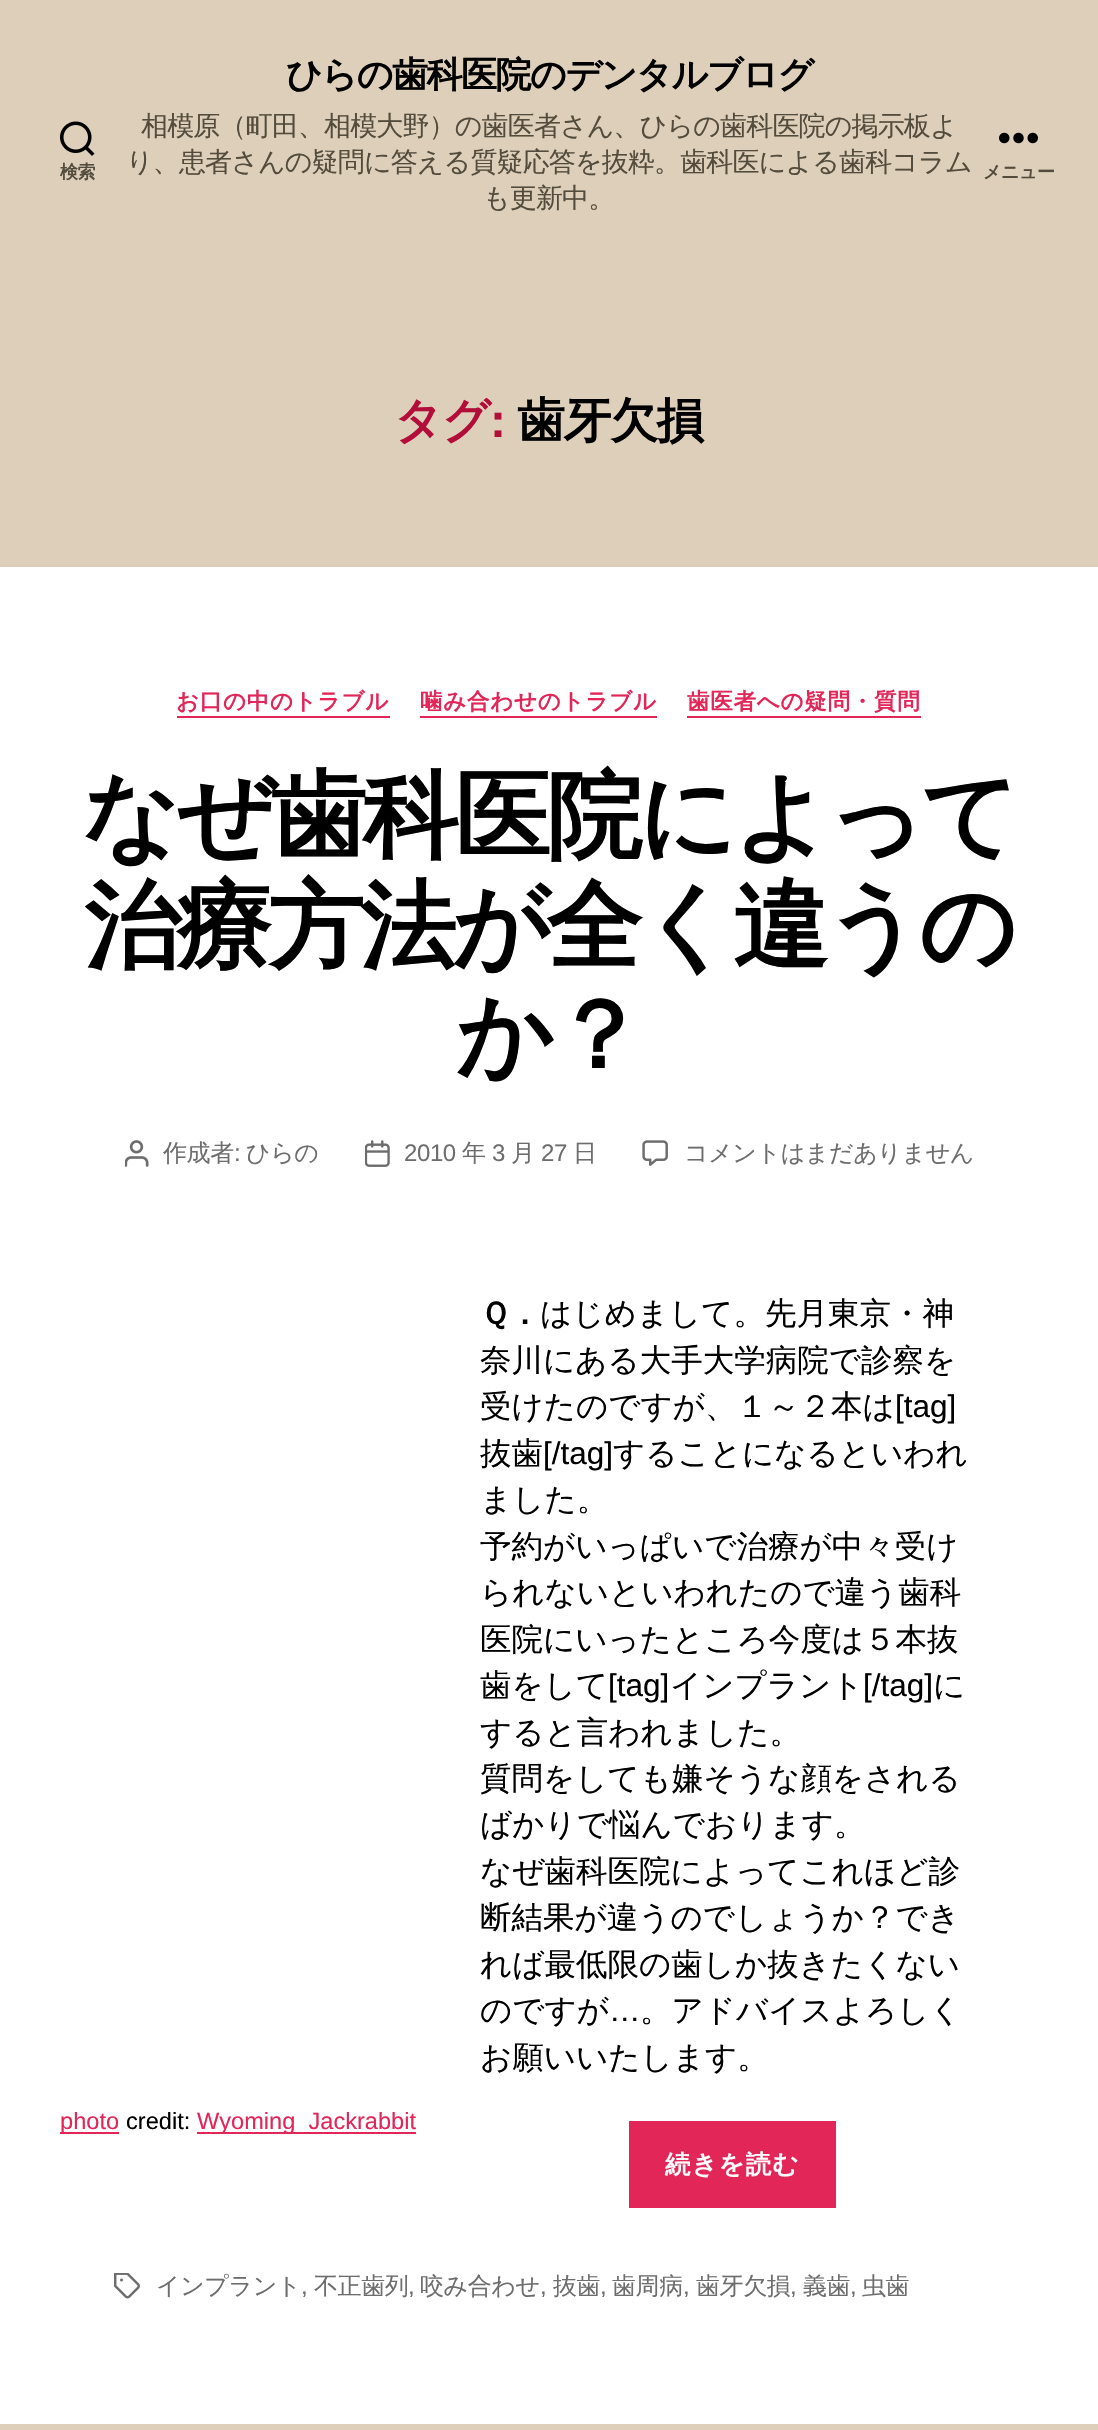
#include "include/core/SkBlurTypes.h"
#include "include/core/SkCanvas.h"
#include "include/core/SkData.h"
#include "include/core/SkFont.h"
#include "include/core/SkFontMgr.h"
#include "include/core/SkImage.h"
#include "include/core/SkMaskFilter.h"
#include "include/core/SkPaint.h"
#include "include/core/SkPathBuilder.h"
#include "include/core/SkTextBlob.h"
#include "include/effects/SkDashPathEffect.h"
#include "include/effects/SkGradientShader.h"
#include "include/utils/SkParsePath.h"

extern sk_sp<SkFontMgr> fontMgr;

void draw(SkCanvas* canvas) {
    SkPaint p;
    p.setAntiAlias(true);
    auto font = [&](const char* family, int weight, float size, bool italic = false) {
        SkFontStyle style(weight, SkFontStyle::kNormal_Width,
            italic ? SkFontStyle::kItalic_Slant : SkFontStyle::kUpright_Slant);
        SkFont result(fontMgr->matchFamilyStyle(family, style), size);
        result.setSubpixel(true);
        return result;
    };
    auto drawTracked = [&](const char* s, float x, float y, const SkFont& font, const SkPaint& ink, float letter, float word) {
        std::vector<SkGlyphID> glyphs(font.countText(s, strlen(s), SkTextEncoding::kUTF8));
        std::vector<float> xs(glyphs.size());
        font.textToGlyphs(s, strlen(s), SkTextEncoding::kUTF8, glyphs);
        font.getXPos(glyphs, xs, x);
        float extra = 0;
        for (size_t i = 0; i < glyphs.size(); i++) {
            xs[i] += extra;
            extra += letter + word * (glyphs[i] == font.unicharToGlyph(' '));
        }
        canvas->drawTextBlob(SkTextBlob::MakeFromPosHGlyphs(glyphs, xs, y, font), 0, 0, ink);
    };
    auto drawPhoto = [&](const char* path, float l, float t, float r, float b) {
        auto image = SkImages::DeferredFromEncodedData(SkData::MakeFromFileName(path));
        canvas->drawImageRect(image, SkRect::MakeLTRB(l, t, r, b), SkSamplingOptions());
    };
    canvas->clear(0xFFFFFFFF);
    p.setColor(0xFFDDCFBA);
    canvas->drawRect(SkRect::MakeLTRB(0, 0, 1098, 567), p);
    drawPhoto("media/1.png", 60, 121, 95, 156);
    auto font1 = font("WenQuanYi Zen Hei", 700, 18);
    p.setColor(0xFF534B3B);
    drawTracked("検索", 60, 178, font1, p, -0.4f, 0);
    auto font2 = font("WenQuanYi Zen Hei", 700, 36);
    p.setColor(0xFF000000);
    drawTracked("ひらの歯科医院のデンタルブログ", 286, 87, font2, p, -1.5f, 0);
    auto font3 = font("WenQuanYi Zen Hei", 500, 27);
    p.setColor(0xFF534B3B);
    {
        const struct { const char* s; float x, y; } items[] = {
            {"相模原（町田、相模大野）の歯医者さん、ひらの歯科医院の掲示板よ", 141, 135},
            {"り、患者さんの疑問に答える質疑応答を抜粋。歯科医による歯科コラム", 126, 171},
            {"も更新中。", 483, 207},
        };
        for (auto [s, x, y] : items) {
            drawTracked(s, x, y, font3, p, -0.85f, 0);
        }
    }
    drawPhoto("media/2.png", 999, 132, 1038, 144);
    drawTracked("メニュー", 983, 178, font1, p, -0.4f, 0);
    auto font4 = font("WenQuanYi Zen Hei", 700, 48);
    p.setColor(0xFFB30E3A);
    drawTracked("タグ", 394, 437, font4, p, -1.5f, 0);
    auto font5 = font("Liberation Sans", 700, 48);
    drawTracked(":", 490, 437, font5, p, -1.5f, 0);
    p.setColor(0xFF000000);
    drawTracked("歯牙欠損", 517, 437, font4, p, -1.5f, 0);
    p.setColor(0xFFE22658);
    canvas->drawRect(SkRect::MakeLTRB(177, 716, 390, 718), p);
    auto font6 = font("WenQuanYi Zen Hei", 700, 22.5f);
    drawTracked("お口の中のトラブル", 176, 709, font6, p, 0.75f, 0);
    canvas->drawRect(SkRect::MakeLTRB(420, 716, 657, 718), p);
    drawTracked("噛み合わせのトラブル", 420, 709, font6, p, 0.75f, 0);
    canvas->drawRect(SkRect::MakeLTRB(687, 716, 921, 718), p);
    drawTracked("歯医者への疑問・質問", 687, 709, font6, p, 0.75f, 0);
    auto font7 = font("WenQuanYi Zen Hei", 700, 96);
    p.setColor(0xFF000000);
    {
        const struct { const char* s; float x, y; } items[] = {
            {"なぜ歯科医院によって", 82, 849},
            {"治療方法が全く違うの", 84, 959},
            {"か？", 456, 1068},
        };
        for (auto [s, x, y] : items) {
            drawTracked(s, x, y, font7, p, -4, 0);
        }
    }
    drawPhoto("media/3.png", 125, 1140, 149, 1167);
    auto font8 = font("WenQuanYi Zen Hei", 500, 24);
    p.setColor(0xFF6D6D6D);
    drawTracked("作成者", 163, 1161, font8, p, -0.4f, 0);
    auto font9 = font("Liberation Sans", 400, 24);
    drawTracked(":", 234, 1161, font9, p, -0.4f, 0);
    drawTracked("ひらの", 246, 1161, font8, p, -0.4f, 0);
    drawPhoto("media/4.png", 365, 1140, 390, 1167);
    drawTracked("2010", 404, 1161, font9, p, -0.4f, 0);
    drawTracked("年", 462, 1161, font8, p, -0.4f, 0);
    drawTracked("3", 492, 1161, font9, p, -0.4f, 0);
    drawTracked("月", 511, 1161, font8, p, -0.4f, 0);
    drawTracked("27", 541, 1161, font9, p, -0.4f, 0);
    drawTracked("日", 573, 1161, font8, p, -0.4f, 0);
    drawPhoto("media/5.png", 642, 1140, 668, 1166);
    drawTracked("コメントはまだありません", 684, 1161, font8, p, -0.4f, 0);
    auto font10 = font("WenQuanYi Zen Hei", 700, 31.5f);
    p.setColor(0xFF000000);
    canvas->drawString("Ｑ．", 480, 1324, font10, p);
    auto font11 = font("WenQuanYi Zen Hei", 500, 31.5f);
    {
        const struct { const char* s; float x, y; } items[] = {
            {"はじめまして。先月東京・神", 540, 1324},
            {"奈川にある大手大学病院で診察を", 480, 1371},
            {"受けたのですが、１～２本は", 480, 1417},
        };
        for (auto [s, x, y] : items) {
            canvas->drawString(s, x, y, font11, p);
        }
    }
    auto font12 = font("Liberation Sans", 400, 31.5f);
    canvas->drawString("[tag]", 895, 1417, font12, p);
    canvas->drawString("抜歯", 480, 1464, font11, p);
    canvas->drawString("[/tag]", 543, 1464, font12, p);
    {
        const struct { const char* s; float x, y; } items[] = {
            {"することになるといわれ", 613, 1464},
            {"ました。", 480, 1510},
            {"予約がいっぱいで治療が中々受け", 480, 1557},
            {"られないといわれたので違う歯科", 480, 1603},
            {"医院にいったところ今度は５本抜", 480, 1650},
            {"歯をして", 480, 1696},
        };
        for (auto [s, x, y] : items) {
            canvas->drawString(s, x, y, font11, p);
        }
    }
    canvas->drawString("[tag]", 608, 1696, font12, p);
    canvas->drawString("インプラント", 670, 1696, font11, p);
    canvas->drawString("[/tag]", 863, 1696, font12, p);
    {
        const struct { const char* s; float x, y; } items[] = {
            {"に", 933, 1696},
            {"すると言われました。", 480, 1743},
            {"質問をしても嫌そうな顔をされる", 480, 1789},
            {"ばかりで悩んでおります。", 480, 1835},
            {"なぜ歯科医院によってこれほど診", 480, 1882},
            {"断結果が違うのでしょうか？でき", 480, 1928},
            {"れば最低限の歯しか抜きたくない", 480, 1975},
            {"のですが", 480, 2021},
        };
        for (auto [s, x, y] : items) {
            canvas->drawString(s, x, y, font11, p);
        }
    }
    canvas->drawString("…", 609, 2021, font12, p);
    canvas->drawString("。アドバイスよろしく", 640, 2021, font11, p);
    canvas->drawString("お願いいたします。", 480, 2068, font11, p);
    p.setColor(0xFFE22658);
    canvas->drawRect(SkRect::MakeLTRB(60, 2132, 119, 2134), p);
    auto font13 = font("Liberation Sans", 400, 23.6f);
    canvas->drawString("photo", 60, 2129, font13, p);
    p.setColor(0xFF000000);
    canvas->drawString("credit:", 126, 2129, font13, p);
    p.setColor(0xFFE22658);
    canvas->drawRect(SkRect::MakeLTRB(197, 2132, 416, 2134), p);
    canvas->drawString("Wyoming_Jackrabbit", 197, 2129, font13, p);
    canvas->drawRect(SkRect::MakeLTRB(629, 2121, 836, 2208), p);
    auto font14 = font("WenQuanYi Zen Hei", 700, 25.5f);
    p.setColor(0xFFFFFFFF);
    drawTracked("続きを読む", 665, 2173, font14, p, 1, 0);
    drawPhoto("media/6.png", 114, 2273, 140, 2299);
    p.setColor(0xFF6D6D6D);
    drawTracked("インプラント", 156, 2294, font8, p, -0.4f, 0);
    drawTracked(",", 301, 2294, font9, p, -0.4f, 0);
    drawTracked("不正歯列", 314, 2294, font8, p, -0.4f, 0);
    drawTracked(",", 408, 2294, font9, p, -0.4f, 0);
    drawTracked("咬み合わせ", 420, 2294, font8, p, -0.4f, 0);
    drawTracked(",", 540, 2294, font9, p, -0.4f, 0);
    drawTracked("抜歯", 553, 2294, font8, p, -0.4f, 0);
    drawTracked(",", 600, 2294, font9, p, -0.4f, 0);
    drawTracked("歯周病", 612, 2294, font8, p, -0.4f, 0);
    drawTracked(",", 683, 2294, font9, p, -0.4f, 0);
    drawTracked("歯牙欠損", 696, 2294, font8, p, -0.4f, 0);
    drawTracked(",", 790, 2294, font9, p, -0.4f, 0);
    drawTracked("義歯", 803, 2294, font8, p, -0.4f, 0);
    drawTracked(",", 850, 2294, font9, p, -0.4f, 0);
    drawTracked("虫歯", 862, 2294, font8, p, -0.4f, 0);
    p.setColor(0xFFDDCFBA);
    canvas->drawRect(SkRect::MakeLTRB(0, 2424, 1098, 2430), p);
}
